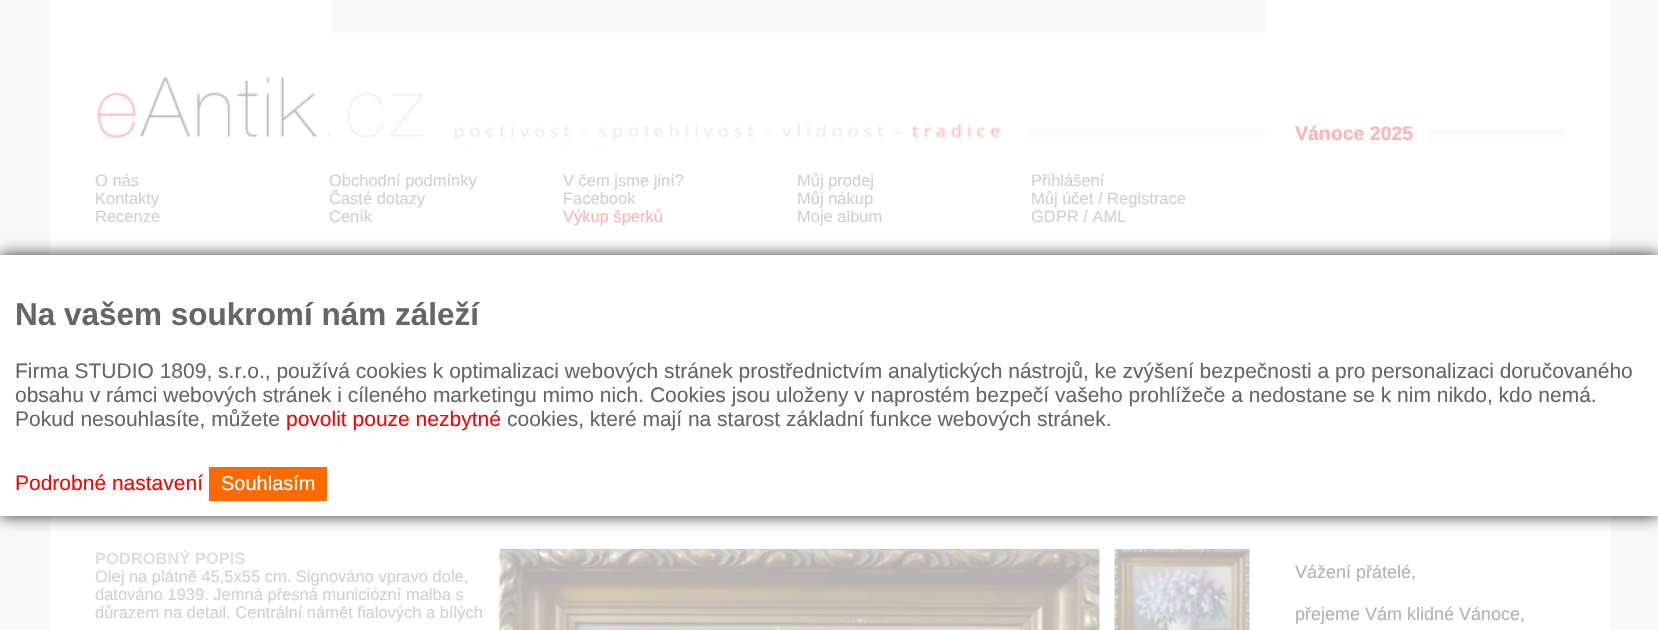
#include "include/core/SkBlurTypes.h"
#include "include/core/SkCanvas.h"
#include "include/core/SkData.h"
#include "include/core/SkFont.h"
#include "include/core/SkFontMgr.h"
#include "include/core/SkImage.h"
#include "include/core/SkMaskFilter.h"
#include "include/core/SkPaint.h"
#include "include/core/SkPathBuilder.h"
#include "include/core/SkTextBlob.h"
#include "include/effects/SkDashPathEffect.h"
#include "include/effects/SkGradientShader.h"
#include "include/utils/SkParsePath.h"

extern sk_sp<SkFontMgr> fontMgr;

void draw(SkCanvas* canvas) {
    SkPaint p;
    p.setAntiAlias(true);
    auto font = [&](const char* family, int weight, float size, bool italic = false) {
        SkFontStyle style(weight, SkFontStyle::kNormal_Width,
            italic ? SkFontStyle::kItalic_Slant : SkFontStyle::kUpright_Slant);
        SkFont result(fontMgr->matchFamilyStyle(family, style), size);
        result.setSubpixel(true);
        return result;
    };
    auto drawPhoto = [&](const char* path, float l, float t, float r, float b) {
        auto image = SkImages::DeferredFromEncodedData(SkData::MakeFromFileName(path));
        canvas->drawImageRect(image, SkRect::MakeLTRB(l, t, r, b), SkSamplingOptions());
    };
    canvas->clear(0xFFF8F8F9);
    p.setColor(0xFFFFFFFF);
    canvas->drawRect(SkRect::MakeLTRB(50, 0, 1610, 630), p);
    p.setColor(0xFFF8F8F9);
    canvas->drawRect(SkRect::MakeLTRB(332, 0, 1265, 33), p);
    drawPhoto("media/1.png", 97, 76, 1265, 150);
    auto font1 = font("Liberation Sans", 400, 16.5f);
    p.setColor(0xFFD1D1D1);
    {
        const struct { const char* s; float x, y; } items[] = {
            {"O nás", 95, 186},
            {"Kontakty", 95, 204},
            {"Recenze", 95, 222},
            {"Obchodní podmínky", 329, 186},
            {"Časté dotazy", 329, 204},
            {"Ceník", 329, 222},
            {"V čem jsme jiní?", 563, 186},
            {"Facebook", 563, 204},
        };
        for (auto [s, x, y] : items) {
            canvas->drawString(s, x, y, font1, p);
        }
    }
    p.setColor(0xFFFFB3B3);
    canvas->drawString("Výkup šperků", 563, 222, font1, p);
    p.setColor(0xFFD1D1D1);
    {
        const struct { const char* s; float x, y; } items[] = {
            {"Můj prodej", 797, 186},
            {"Můj nákup", 797, 204},
            {"Moje album", 797, 222},
            {"Přihlášení", 1031, 186},
            {"Můj účet / Registrace", 1031, 204},
            {"GDPR / AML", 1031, 222},
        };
        for (auto [s, x, y] : items) {
            canvas->drawString(s, x, y, font1, p);
        }
    }
    auto font2 = font("Liberation Sans", 700, 16.5f);
    p.setColor(0xFFE0E0E0);
    canvas->drawString("PODROBNÝ POPIS", 95, 564, font2, p);
    p.setColor(0xFFD1D1D1);
    {
        const struct { const char* s; float x, y; } items[] = {
            {"Olej na plátně 45,5x55 cm. Signováno vpravo dole,", 95, 582},
            {"datováno 1939. Jemná přesná municiózní malba s", 95, 600},
            {"důrazem na detail. Centrální námět fialových a bílých", 95, 618},
        };
        for (auto [s, x, y] : items) {
            canvas->drawString(s, x, y, font1, p);
        }
    }
    drawPhoto("media/2.png", 499, 549, 1100, 630);
    drawPhoto("media/3.png", 1114, 549, 1250, 630);
    auto font3 = font("Liberation Sans", 700, 19.5f);
    p.setColor(0xFFFFB3B3);
    canvas->drawString("Vánoce 2025", 1295, 140, font3, p);
    p.setColor(0xFFFAFAFA);
    canvas->drawRect(SkRect::MakeLTRB(1428, 129, 1565, 138), p);
    auto font4 = font("Liberation Sans", 400, 18);
    p.setColor(0xFFB3B3B3);
    canvas->drawString("Vážení přátelé,", 1295, 578, font4, p);
    canvas->drawString("přejeme Vám klidné Vánoce,", 1295, 620, font4, p);
    p.setColor(0xCC000000);
    p.setMaskFilter(SkMaskFilter::MakeBlur(kNormal_SkBlurStyle, 7.5f));
    canvas->drawRect(SkRect::MakeLTRB(0, 255, 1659, 516), p);
    p.setMaskFilter(nullptr);
    p.setColor(0xFFFFFFFF);
    canvas->drawRect(SkRect::MakeLTRB(0, 255, 1658, 516), p);
    auto font5 = font("Liberation Sans", 700, 31.5f);
    p.setColor(0xFF666666);
    canvas->drawString("Na vašem soukromí nám záleží", 15, 325, font5, p);
    auto font6 = font("Liberation Sans", 400, 21);
    {
        const struct { const char* s; float x, y; } items[] = {
            {"Firma STUDIO 1809, s.r.o., používá cookies k optimalizaci webových stránek prostřednictvím analytických nástrojů, ke zvýšení bezpečnosti a pro personalizaci doručovaného", 15, 378},
            {"obsahu v rámci webových stránek i cíleného marketingu mimo nich. Cookies jsou uloženy v naprostém bezpečí vašeho prohlížeče a nedostane se k nim nikdo, kdo nemá.", 15, 402},
            {"Pokud nesouhlasíte, můžete", 15, 426},
        };
        for (auto [s, x, y] : items) {
            canvas->drawString(s, x, y, font6, p);
        }
    }
    p.setColor(0xFFFF0000);
    canvas->drawString("povolit pouze nezbytné", 286, 426, font6, p);
    p.setColor(0xFF666666);
    canvas->drawString("cookies, které mají na starost základní funkce webových stránek.", 507, 426, font6, p);
    p.setColor(0xFFFF0000);
    canvas->drawString("Podrobné nastavení", 15, 490, font6, p);
    p.setColor(0xFFFF6A00);
    canvas->drawRect(SkRect::MakeLTRB(209, 467, 327, 501), p);
    auto font7 = font("Liberation Sans", 400, 20);
    p.setColor(0xFFFFFFFF);
    canvas->drawString("Souhlasím", 221, 490, font7, p);
}
